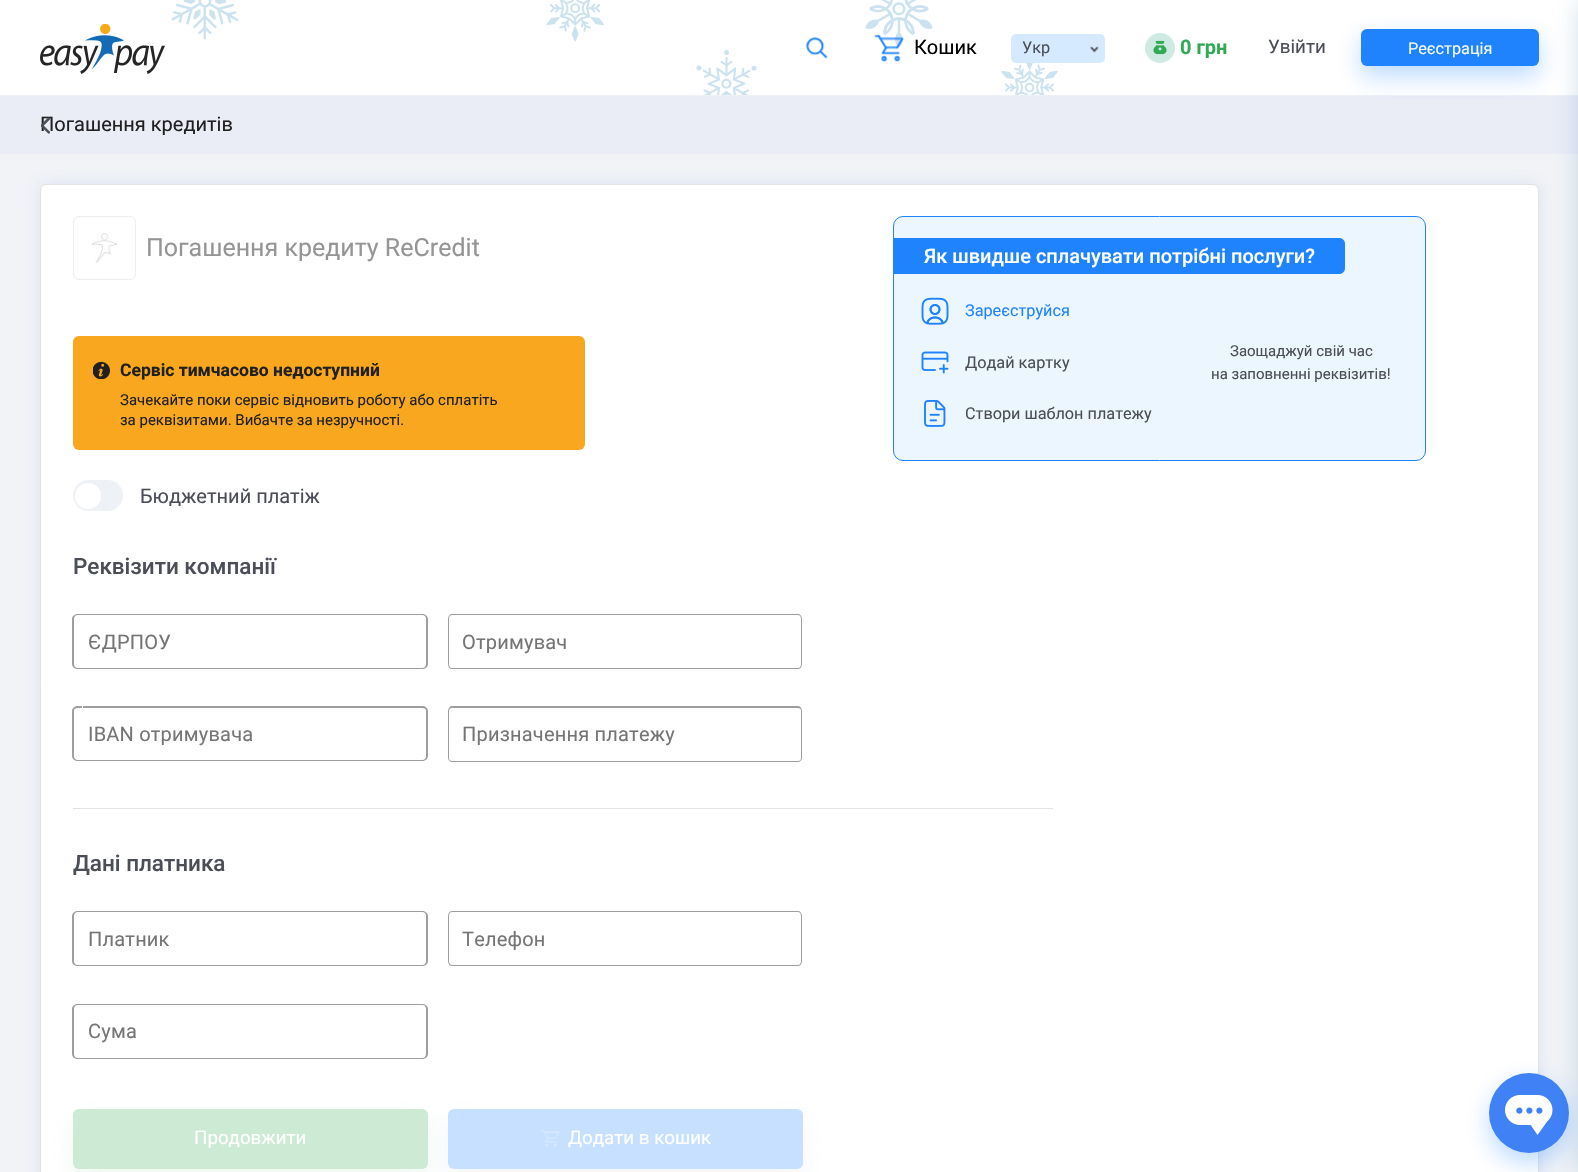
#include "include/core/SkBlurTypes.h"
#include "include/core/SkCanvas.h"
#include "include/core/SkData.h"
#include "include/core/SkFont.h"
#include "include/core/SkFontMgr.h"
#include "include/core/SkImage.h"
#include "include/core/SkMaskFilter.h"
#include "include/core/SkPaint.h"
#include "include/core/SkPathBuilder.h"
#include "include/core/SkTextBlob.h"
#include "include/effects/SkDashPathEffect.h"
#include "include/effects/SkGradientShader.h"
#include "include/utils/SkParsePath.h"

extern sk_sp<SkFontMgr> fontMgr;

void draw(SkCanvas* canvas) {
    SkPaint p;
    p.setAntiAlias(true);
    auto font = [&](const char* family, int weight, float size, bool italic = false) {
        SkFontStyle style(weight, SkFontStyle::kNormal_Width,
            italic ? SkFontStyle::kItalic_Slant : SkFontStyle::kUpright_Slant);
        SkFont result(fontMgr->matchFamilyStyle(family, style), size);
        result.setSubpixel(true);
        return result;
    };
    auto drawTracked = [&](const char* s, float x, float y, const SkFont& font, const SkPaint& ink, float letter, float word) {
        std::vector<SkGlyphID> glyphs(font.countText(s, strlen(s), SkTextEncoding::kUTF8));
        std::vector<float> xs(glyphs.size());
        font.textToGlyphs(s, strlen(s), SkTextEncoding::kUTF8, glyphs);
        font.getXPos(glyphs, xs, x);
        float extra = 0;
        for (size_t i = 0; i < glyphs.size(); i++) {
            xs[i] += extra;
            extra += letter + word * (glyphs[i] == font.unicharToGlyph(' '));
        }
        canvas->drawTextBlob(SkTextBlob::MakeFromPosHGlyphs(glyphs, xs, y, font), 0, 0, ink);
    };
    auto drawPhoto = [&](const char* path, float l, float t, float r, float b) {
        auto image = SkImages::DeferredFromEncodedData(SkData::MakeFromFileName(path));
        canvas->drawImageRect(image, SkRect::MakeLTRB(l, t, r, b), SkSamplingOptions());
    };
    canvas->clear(0xFFFFFFFF);
    p.setColor(0xFFEEF2F7);
    canvas->drawRect(SkRect::MakeLTRB(0, 95, 1578, 96), p);
    drawPhoto("media/1.png", 1001, 63, 1058, 95);
    drawPhoto("media/2.png", 696, 50, 757, 95);
    drawPhoto("media/3.png", 865, 0, 933, 48);
    drawPhoto("media/4.png", 546, 0, 604, 42);
    drawPhoto("media/5.png", 171, 0, 239, 40);
    drawPhoto("media/6.png", 40, 24, 165, 74);
    drawPhoto("media/7.png", 806, 37, 828, 59);
    drawPhoto("media/8.png", 874, 34, 904, 62);
    auto font1 = font("Roboto", 400, 20);
    p.setColor(0xFF000000);
    canvas->drawString("Кошик", 914, 54, font1, p);
    p.setColor(0xFFD6EAFF);
    canvas->drawRoundRect(SkRect::MakeLTRB(1011, 34, 1105, 63), 5, 5, p);
    auto font2 = font("Roboto", 400, 16.25f);
    p.setColor(0xFF4B4E56);
    canvas->drawString("Укр", 1022, 53, font2, p);
    drawPhoto("media/9.png", 1090, 46, 1099, 53);
    p.setColor(0xFFCFEAE2);
    canvas->drawCircle(1160, 48, 15, p);
    drawPhoto("media/10.png", 1153, 40, 1167, 55);
    auto font3 = font("Roboto", 700, 20);
    p.setColor(0xFF32AA55);
    canvas->drawString("0 грн", 1180, 54, font3, p);
    auto font4 = font("Roboto", 400, 18.75f);
    p.setColor(0xFF4B4E56);
    canvas->drawString("Увійти", 1268, 53, font4, p);
    p.setColor(0xFFEAECF6);
    canvas->drawRect(SkRect::MakeLTRB(0, 96, 1578, 154), p);
    p.setColor(0x4D1F83FE);
    p.setMaskFilter(SkMaskFilter::MakeBlur(kNormal_SkBlurStyle, 12.5f));
    canvas->drawRoundRect(SkRect::MakeLTRB(1361, 39, 1539, 76), 6, 6, p);
    p.setMaskFilter(nullptr);
    p.setColor(0xFF1F83FE);
    canvas->drawRoundRect(SkRect::MakeLTRB(1361, 29, 1539, 66), 6, 6, p);
    p.setColor(0xFFF6FBFF);
    canvas->drawString("Реєстрація", 1408, 54, font2, p);
    p.setColor(0xFFF1F3F7);
    canvas->drawRect(SkRect::MakeLTRB(0, 154, 1578, 1172), p);
    p.setColor(0xCFD6DCEE);
    p.setMaskFilter(SkMaskFilter::MakeBlur(kNormal_SkBlurStyle, 7.5f));
    canvas->drawRoundRect(SkRect::MakeLTRB(40, 184, 1539, 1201), 6, 6, p);
    p.setMaskFilter(nullptr);
    p.setColor(0xFFFFFFFF);
    canvas->drawRoundRect(SkRect::MakeLTRB(40.5f, 184.5f, 1538.5f, 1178.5f), 5.5f, 5.5f, p);
    p.setStyle(SkPaint::kStroke_Style);
    p.setStrokeWidth(1);
    p.setColor(0xFFE2E2E2);
    canvas->drawRoundRect(SkRect::MakeLTRB(40.5f, 184.5f, 1538.5f, 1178.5f), 5.5f, 5.5f, p);
    p.setStyle(SkPaint::kFill_Style);
    p.setColor(0x4D1F83FE);
    p.setMaskFilter(SkMaskFilter::MakeBlur(kNormal_SkBlurStyle, 12.5f));
    canvas->drawRoundRect(SkRect::MakeLTRB(1489, 1083, 1569, 1163), 40, 40, p);
    p.setMaskFilter(nullptr);
    p.setColor(0xFF4081F6);
    canvas->drawCircle(1529, 1113, 40, p);
    drawPhoto("media/18.png", 1505, 1095, 1553, 1135);
    p.setColor(0x33055EA6);
    p.setMaskFilter(SkMaskFilter::MakeBlur(kNormal_SkBlurStyle, 13));
    canvas->drawRect(SkRect::MakeLTRB(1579, 3, 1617, 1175), p);
    p.setMaskFilter(nullptr);
    p.setColor(0xFF202020);
    canvas->drawString("Погашення кредитів", 40, 131, font1, p);
    drawPhoto("media/11.png", 41, 117, 51, 134);
    p.setStyle(SkPaint::kStroke_Style);
    p.setColor(0xFFEEEEEE);
    canvas->drawRoundRect(SkRect::MakeLTRB(73.5f, 216.5f, 135.5f, 279.5f), 5.5f, 5.5f, p);
    drawPhoto("media/12.png", 91, 233, 117, 264);
    auto font5 = font("Roboto", 400, 25);
    p.setStyle(SkPaint::kFill_Style);
    p.setColor(0xFF959595);
    canvas->drawString("Погашення кредиту ReCredit", 146, 256, font5, p);
    p.setColor(0xFFF8A71E);
    canvas->drawRoundRect(SkRect::MakeLTRB(73, 336, 585, 450), 6, 6, p);
    drawPhoto("media/13.png", 93, 361, 110, 379);
    auto font6 = font("Roboto", 700, 17.5f);
    p.setColor(0xFF202020);
    canvas->drawString("Сервіс тимчасово недоступний", 120, 376, font6, p);
    auto font7 = font("Roboto", 400, 15);
    canvas->drawString("Зачекайте поки сервіс відновить роботу або сплатіть", 120, 405, font7, p);
    canvas->drawString("за реквізитами. Вибачте за незручності.", 120, 425, font7, p);
    p.setColor(0xFFECF6FF);
    canvas->drawRoundRect(SkRect::MakeLTRB(893.5f, 216.5f, 1425.5f, 460.5f), 9.5f, 9.5f, p);
    p.setStyle(SkPaint::kStroke_Style);
    p.setColor(0xFF1F83FE);
    canvas->drawRoundRect(SkRect::MakeLTRB(893.5f, 216.5f, 1425.5f, 460.5f), 9.5f, 9.5f, p);
    p.setStyle(SkPaint::kFill_Style);
    canvas->drawPath(SkPathBuilder().moveTo(894, 238).lineTo(1339, 238).cubicTo(1342.5f, 238, 1345, 240.5f, 1345, 244).lineTo(1345, 268).cubicTo(1345, 271.5f, 1342.5f, 274, 1339, 274).lineTo(894, 274).close().detach(), p);
    auto font8 = font("Roboto", 500, 20);
    p.setColor(0xFFFFFFFF);
    canvas->drawString("Як швидше сплачувати потрібні послуги?", 924, 263, font8, p);
    drawPhoto("media/14.png", 921, 297, 949, 325);
    p.setColor(0xFF1F83FE);
    canvas->drawString("Зареєструйся", 965, 316, font2, p);
    drawPhoto("media/15.png", 921, 351, 949, 374);
    p.setColor(0xFF4B4E56);
    canvas->drawString("Додай картку", 965, 368, font2, p);
    drawPhoto("media/16.png", 924, 400, 946, 427);
    canvas->drawString("Створи шаблон платежу", 965, 419, font2, p);
    canvas->drawString("Заощаджуй свій час", 1230, 356, font7, p);
    canvas->drawString("на заповненні реквізитів!", 1211, 379, font7, p);
    p.setColor(0xFFEEF2F7);
    canvas->drawRoundRect(SkRect::MakeLTRB(73, 480, 123, 511), 15.5f, 15.5f, p);
    p.setColor(0xFFFFFFFF);
    canvas->drawCircle(88, 496, 13, p);
    p.setColor(0xFF4B4E56);
    canvas->drawString("Бюджетний платіж", 140, 503, font1, p);
    auto font9 = font("Roboto", 500, 22.5f);
    canvas->drawString("Реквізити компанії", 73, 574, font9, p);
    p.setColor(0xFF9E9E9E);
    canvas->drawPath(SkPathBuilder(SkPathFillType::kEvenOdd).moveTo(78, 614).lineTo(82, 614).lineTo(82, 669).lineTo(78, 669).cubicTo(75, 669, 72, 667, 72, 664).lineTo(72, 619).cubicTo(72, 616, 75, 614, 78, 614).close().moveTo(78, 615).lineTo(82, 615).lineTo(82, 668).lineTo(78, 668).cubicTo(75, 668, 74, 666, 74, 664).lineTo(74, 619).cubicTo(74, 617, 75, 615, 78, 615).close().detach(), p);
    canvas->drawPath(SkPathBuilder().moveTo(81, 614).lineTo(165, 614).lineTo(165, 615).lineTo(82, 615).close().detach(), p);
    canvas->drawPath(SkPathBuilder().moveTo(165, 669).lineTo(81, 669).lineTo(82, 668).lineTo(165, 668).close().detach(), p);
    canvas->drawPath(SkPathBuilder(SkPathFillType::kEvenOdd).moveTo(165, 614).lineTo(422, 614).cubicTo(425, 614, 428, 616, 428, 619).lineTo(428, 664).cubicTo(428, 667, 425, 669, 422, 669).lineTo(165, 669).close().moveTo(165, 615).lineTo(422, 615).cubicTo(425, 615, 426, 617, 426, 619).lineTo(426, 664).cubicTo(426, 666, 425, 668, 422, 668).lineTo(165, 668).close().detach(), p);
    p.setColor(0xFF757575);
    drawTracked("ЄДРПОУ", 88, 649, font1, p, 0.2f, 0);
    p.setColor(0xFF9E9E9E);
    canvas->drawPath(SkPathBuilder(SkPathFillType::kEvenOdd).moveTo(452, 614).lineTo(458, 614).lineTo(458, 669).lineTo(452, 669).cubicTo(450, 669, 448, 667, 448, 664).lineTo(448, 619).cubicTo(448, 616, 450, 614, 452, 614).close().moveTo(452, 615).lineTo(458, 615).lineTo(458, 668).lineTo(452, 668).cubicTo(450, 668, 449, 666, 449, 664).lineTo(449, 619).cubicTo(449, 617, 450, 615, 452, 615).close().detach(), p);
    canvas->drawPath(SkPathBuilder().moveTo(456, 614).lineTo(562, 614).lineTo(562, 615).lineTo(458, 615).close().detach(), p);
    canvas->drawPath(SkPathBuilder().moveTo(562, 669).lineTo(456, 669).lineTo(458, 668).lineTo(562, 668).close().detach(), p);
    canvas->drawPath(SkPathBuilder(SkPathFillType::kEvenOdd).moveTo(562, 614).lineTo(798, 614).cubicTo(800, 614, 802, 616, 802, 619).lineTo(802, 664).cubicTo(802, 667, 800, 669, 798, 669).lineTo(562, 669).close().moveTo(562, 615).lineTo(798, 615).cubicTo(800, 615, 801, 617, 801, 619).lineTo(801, 664).cubicTo(801, 666, 800, 668, 798, 668).lineTo(562, 668).close().detach(), p);
    p.setColor(0xFF757575);
    drawTracked("Отримувач", 462, 649, font1, p, 0.2f, 0);
    p.setColor(0xFF9E9E9E);
    canvas->drawPath(SkPathBuilder(SkPathFillType::kEvenOdd).moveTo(78, 706).lineTo(82, 706).lineTo(82, 761).lineTo(78, 761).cubicTo(75, 761, 72, 759, 72, 756).lineTo(72, 711).cubicTo(72, 708, 75, 706, 78, 706).close().moveTo(78, 708).lineTo(82, 708).lineTo(82, 760).lineTo(78, 760).cubicTo(75, 760, 74, 758, 74, 756).lineTo(74, 711).cubicTo(74, 709, 75, 708, 78, 708).close().detach(), p);
    canvas->save();
    canvas->clipRect(SkRect::MakeLTRB(83, 526, 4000, 941));
    canvas->drawPath(SkPathBuilder().moveTo(81, 706).lineTo(248, 706).lineTo(248, 708).lineTo(82, 708).close().detach(), p);
    canvas->restore();
    canvas->drawPath(SkPathBuilder().moveTo(248, 761).lineTo(81, 761).lineTo(82, 760).lineTo(248, 760).close().detach(), p);
    canvas->drawPath(SkPathBuilder(SkPathFillType::kEvenOdd).moveTo(248, 706).lineTo(422, 706).cubicTo(425, 706, 428, 708, 428, 711).lineTo(428, 756).cubicTo(428, 759, 425, 761, 422, 761).lineTo(248, 761).close().moveTo(248, 708).lineTo(422, 708).cubicTo(425, 708, 426, 709, 426, 711).lineTo(426, 756).cubicTo(426, 758, 425, 760, 422, 760).lineTo(248, 760).close().detach(), p);
    p.setColor(0xFF757575);
    drawTracked("IBAN отримувача", 88, 741, font1, p, 0.2f, 0);
    p.setColor(0xFF9E9E9E);
    canvas->drawPath(SkPathBuilder(SkPathFillType::kEvenOdd).moveTo(452, 706).lineTo(458, 706).lineTo(458, 762).lineTo(452, 762).cubicTo(450, 762, 448, 760, 448, 758).lineTo(448, 711).cubicTo(448, 708, 450, 706, 452, 706).close().moveTo(452, 708).lineTo(458, 708).lineTo(458, 761).lineTo(452, 761).cubicTo(450, 761, 449, 760, 449, 758).lineTo(449, 711).cubicTo(449, 709, 450, 708, 452, 708).close().detach(), p);
    canvas->save();
    canvas->clipRect(SkRect::MakeLTRB(458, 526, 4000, 943));
    canvas->drawPath(SkPathBuilder().moveTo(456, 706).lineTo(670, 706).lineTo(670, 708).lineTo(458, 708).close().detach(), p);
    canvas->restore();
    canvas->drawPath(SkPathBuilder().moveTo(670, 762).lineTo(456, 762).lineTo(458, 761).lineTo(670, 761).close().detach(), p);
    canvas->drawPath(SkPathBuilder(SkPathFillType::kEvenOdd).moveTo(670, 706).lineTo(798, 706).cubicTo(800, 706, 802, 708, 802, 711).lineTo(802, 758).cubicTo(802, 760, 800, 762, 798, 762).lineTo(670, 762).close().moveTo(670, 708).lineTo(798, 708).cubicTo(800, 708, 801, 709, 801, 711).lineTo(801, 758).cubicTo(801, 760, 800, 761, 798, 761).lineTo(670, 761).close().detach(), p);
    p.setColor(0xFF757575);
    drawTracked("Призначення платежу", 462, 741, font1, p, 0.2f, 0);
    p.setColor(0xFFE2E2E2);
    canvas->drawRect(SkRect::MakeLTRB(73, 808, 1053, 809), p);
    p.setColor(0xFF4B4E56);
    canvas->drawString("Дані платника", 73, 871, font9, p);
    p.setColor(0xFF9E9E9E);
    canvas->drawPath(SkPathBuilder(SkPathFillType::kEvenOdd).moveTo(78, 911).lineTo(82, 911).lineTo(82, 966).lineTo(78, 966).cubicTo(75, 966, 72, 964, 72, 961).lineTo(72, 916).cubicTo(72, 913, 75, 911, 78, 911).close().moveTo(78, 912).lineTo(82, 912).lineTo(82, 965).lineTo(78, 965).cubicTo(75, 965, 74, 963, 74, 961).lineTo(74, 916).cubicTo(74, 914, 75, 912, 78, 912).close().detach(), p);
    canvas->drawPath(SkPathBuilder().moveTo(81, 911).lineTo(164, 911).lineTo(164, 912).lineTo(82, 912).close().detach(), p);
    canvas->drawPath(SkPathBuilder().moveTo(164, 966).lineTo(81, 966).lineTo(82, 965).lineTo(164, 965).close().detach(), p);
    canvas->drawPath(SkPathBuilder(SkPathFillType::kEvenOdd).moveTo(164, 911).lineTo(422, 911).cubicTo(425, 911, 428, 913, 428, 916).lineTo(428, 961).cubicTo(428, 964, 425, 966, 422, 966).lineTo(164, 966).close().moveTo(164, 912).lineTo(422, 912).cubicTo(425, 912, 426, 914, 426, 916).lineTo(426, 961).cubicTo(426, 963, 425, 965, 422, 965).lineTo(164, 965).close().detach(), p);
    p.setColor(0xFF757575);
    drawTracked("Платник", 88, 946, font1, p, 0.2f, 0);
    p.setColor(0xFF9E9E9E);
    canvas->drawPath(SkPathBuilder(SkPathFillType::kEvenOdd).moveTo(452, 911).lineTo(458, 911).lineTo(458, 966).lineTo(452, 966).cubicTo(450, 966, 448, 964, 448, 961).lineTo(448, 916).cubicTo(448, 913, 450, 911, 452, 911).close().moveTo(452, 912).lineTo(458, 912).lineTo(458, 965).lineTo(452, 965).cubicTo(450, 965, 449, 963, 449, 961).lineTo(449, 916).cubicTo(449, 914, 450, 912, 452, 912).close().detach(), p);
    canvas->drawPath(SkPathBuilder().moveTo(456, 911).lineTo(541, 911).lineTo(541, 912).lineTo(458, 912).close().detach(), p);
    canvas->drawPath(SkPathBuilder().moveTo(541, 966).lineTo(456, 966).lineTo(458, 965).lineTo(541, 965).close().detach(), p);
    canvas->drawPath(SkPathBuilder(SkPathFillType::kEvenOdd).moveTo(541, 911).lineTo(798, 911).cubicTo(800, 911, 802, 913, 802, 916).lineTo(802, 961).cubicTo(802, 964, 800, 966, 798, 966).lineTo(541, 966).close().moveTo(541, 912).lineTo(798, 912).cubicTo(800, 912, 801, 914, 801, 916).lineTo(801, 961).cubicTo(801, 963, 800, 965, 798, 965).lineTo(541, 965).close().detach(), p);
    p.setColor(0xFF757575);
    drawTracked("Телефон", 462, 946, font1, p, 0.2f, 0);
    p.setColor(0xFF9E9E9E);
    canvas->drawPath(SkPathBuilder(SkPathFillType::kEvenOdd).moveTo(78, 1004).lineTo(82, 1004).lineTo(82, 1059).lineTo(78, 1059).cubicTo(75, 1059, 72, 1057, 72, 1054).lineTo(72, 1009).cubicTo(72, 1006, 75, 1004, 78, 1004).close().moveTo(78, 1005).lineTo(82, 1005).lineTo(82, 1058).lineTo(78, 1058).cubicTo(75, 1058, 74, 1056, 74, 1054).lineTo(74, 1009).cubicTo(74, 1007, 75, 1005, 78, 1005).close().detach(), p);
    canvas->drawPath(SkPathBuilder().moveTo(81, 1004).lineTo(131, 1004).lineTo(131, 1005).lineTo(82, 1005).close().moveTo(131, 1059).lineTo(81, 1059).lineTo(82, 1058).lineTo(131, 1058).close().detach(), p);
    canvas->drawPath(SkPathBuilder(SkPathFillType::kEvenOdd).moveTo(131, 1004).lineTo(422, 1004).cubicTo(425, 1004, 428, 1006, 428, 1009).lineTo(428, 1054).cubicTo(428, 1057, 425, 1059, 422, 1059).lineTo(131, 1059).close().moveTo(131, 1005).lineTo(422, 1005).cubicTo(425, 1005, 426, 1007, 426, 1009).lineTo(426, 1054).cubicTo(426, 1056, 425, 1058, 422, 1058).lineTo(131, 1058).close().detach(), p);
    p.setColor(0xFF757575);
    drawTracked("Сума", 88, 1038, font1, p, 0.2f, 0);
    p.setColor(0x52CCEAD5);
    p.setMaskFilter(SkMaskFilter::MakeBlur(kNormal_SkBlurStyle, 12.5f));
    canvas->drawRoundRect(SkRect::MakeLTRB(73, 1119, 428, 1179), 6, 6, p);
    p.setMaskFilter(nullptr);
    p.setColor(0xFFCCEAD4);
    canvas->drawRoundRect(SkRect::MakeLTRB(73, 1109, 428, 1169), 6, 6, p);
    p.setColor(0xFFFFFFFF);
    canvas->drawString("Продовжити", 194, 1144, font4, p);
    p.setColor(0x145B88F1);
    p.setMaskFilter(SkMaskFilter::MakeBlur(kNormal_SkBlurStyle, 12.5f));
    canvas->drawRoundRect(SkRect::MakeLTRB(448, 1119, 803, 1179), 6, 6, p);
    p.setMaskFilter(nullptr);
    p.setColor(0xFFC7E0FF);
    canvas->drawRoundRect(SkRect::MakeLTRB(448, 1109, 803, 1169), 6, 6, p);
    drawPhoto("media/17.png", 540, 1130, 560, 1147);
    p.setColor(0xFFFFFFFF);
    canvas->drawString("Додати в кошик", 568, 1144, font4, p);
}
